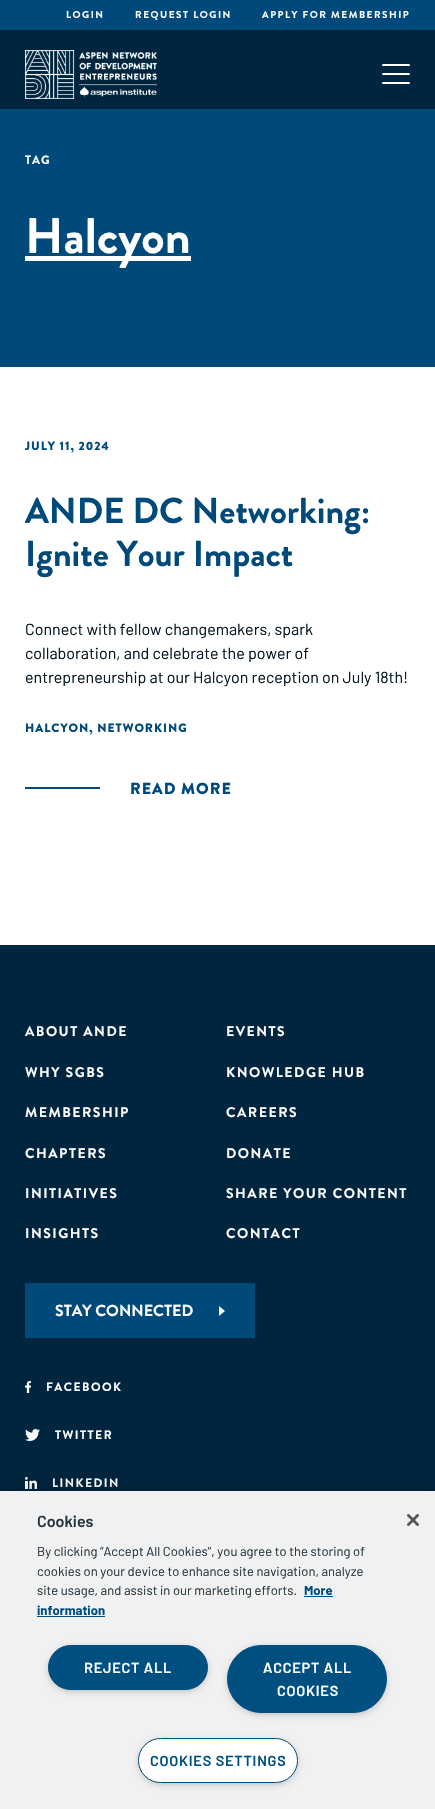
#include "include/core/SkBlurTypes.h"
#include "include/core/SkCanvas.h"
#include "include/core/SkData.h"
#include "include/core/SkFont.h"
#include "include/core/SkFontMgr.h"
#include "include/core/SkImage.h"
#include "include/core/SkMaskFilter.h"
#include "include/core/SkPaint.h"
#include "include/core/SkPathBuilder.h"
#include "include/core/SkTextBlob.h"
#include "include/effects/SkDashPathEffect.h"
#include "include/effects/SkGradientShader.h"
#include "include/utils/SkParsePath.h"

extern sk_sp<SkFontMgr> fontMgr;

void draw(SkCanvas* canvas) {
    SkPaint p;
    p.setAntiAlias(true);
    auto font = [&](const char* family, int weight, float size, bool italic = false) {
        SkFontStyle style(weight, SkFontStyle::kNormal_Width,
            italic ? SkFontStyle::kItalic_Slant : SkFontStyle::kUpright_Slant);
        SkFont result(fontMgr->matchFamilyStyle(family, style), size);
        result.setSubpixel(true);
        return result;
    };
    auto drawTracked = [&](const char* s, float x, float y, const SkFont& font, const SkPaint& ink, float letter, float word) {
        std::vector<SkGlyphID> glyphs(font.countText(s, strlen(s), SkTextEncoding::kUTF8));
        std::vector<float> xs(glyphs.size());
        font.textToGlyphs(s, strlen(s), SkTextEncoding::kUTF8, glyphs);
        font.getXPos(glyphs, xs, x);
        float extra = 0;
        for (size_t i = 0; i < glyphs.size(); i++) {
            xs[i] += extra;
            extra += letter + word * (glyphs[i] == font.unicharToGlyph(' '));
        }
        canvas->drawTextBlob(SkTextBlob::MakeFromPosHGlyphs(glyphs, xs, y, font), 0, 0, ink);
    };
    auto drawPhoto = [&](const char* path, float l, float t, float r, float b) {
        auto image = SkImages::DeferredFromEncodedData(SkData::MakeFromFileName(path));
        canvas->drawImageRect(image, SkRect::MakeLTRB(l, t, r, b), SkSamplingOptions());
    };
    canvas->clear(0xFFFFFFFF);
    p.setColor(0xFF00497B);
    canvas->drawRect(SkRect::MakeLTRB(0, 0, 435, 367), p);
    auto font1 = font("Brandon Grotesque", 700, 10);
    p.setColor(0xFFFFFFFF);
    {
        const struct { const char* s; float x, y; } items[] = {
            {"LOGIN", 66, 18},
            {"REQUEST LOGIN", 135, 18},
            {"APPLY FOR MEMBERSHIP", 262, 18},
        };
        for (auto [s, x, y] : items) {
            drawTracked(s, x, y, font1, p, 1.5f, 0);
        }
    }
    p.setColor(0xFF00253E);
    canvas->drawRect(SkRect::MakeLTRB(0, 30, 435, 109), p);
    drawPhoto("media/1.png", 25, 50, 157, 99);
    p.setColor(0xFFFFFFFF);
    canvas->drawRoundRect(SkRect::MakeLTRB(382, 64, 410, 66), 1, 1, p);
    canvas->drawRoundRect(SkRect::MakeLTRB(382, 73, 410, 75), 1, 1, p);
    canvas->drawRoundRect(SkRect::MakeLTRB(382, 82, 410, 84), 1, 1, p);
    auto font2 = font("Brandon Grotesque", 700, 12);
    drawTracked("TAG", 25, 164, font2, p, 1, 0);
    canvas->drawRect(SkRect::MakeLTRB(25, 256, 191, 261), p);
    auto font3 = font("Brandon Grotesque", 700, 50);
    canvas->drawString("Halcyon", 25, 253, font3, p);
    auto font4 = font("Brandon Grotesque", 900, 12);
    p.setColor(0xFF00497B);
    drawTracked("JULY 11, 2024", 25, 450, font4, p, 1, 0);
    auto font5 = font("Brandon Grotesque", 700, 36);
    canvas->drawString("ANDE DC Networking:", 25, 523, font5, p);
    canvas->drawString("Ignite Your Impact", 25, 566, font5, p);
    auto font6 = font("Barlow", 400, 16);
    p.setColor(0xFF061722);
    {
        const struct { const char* s; float x, y; } items[] = {
            {"Connect with fellow changemakers, spark", 25, 635},
            {"collaboration, and celebrate the power of", 25, 659},
            {"entrepreneurship at our Halcyon reception on July 18th!", 25, 683},
        };
        for (auto [s, x, y] : items) {
            canvas->drawString(s, x, y, font6, p);
        }
    }
    p.setColor(0xFF00497B);
    drawTracked("HALCYON, NETWORKING", 25, 732, font4, p, 1, 0);
    canvas->drawRect(SkRect::MakeLTRB(25, 787, 100, 789), p);
    auto font7 = font("Brandon Grotesque", 900, 16);
    drawTracked("READ MORE", 130, 794, font7, p, 1, 0);
    p.setColor(0xFF00253E);
    canvas->drawRect(SkRect::MakeLTRB(0, 945, 435, 1491), p);
    auto font8 = font("Brandon Grotesque", 700, 14);
    p.setColor(0xFFFFFFFF);
    {
        const struct { const char* s; float x, y; } items[] = {
            {"ABOUT ANDE", 25, 1036},
            {"EVENTS", 226, 1036},
            {"WHY SGBS", 25, 1077},
            {"KNOWLEDGE HUB", 226, 1077},
            {"MEMBERSHIP", 25, 1117},
            {"CAREERS", 226, 1117},
            {"CHAPTERS", 25, 1158},
            {"DONATE", 226, 1158},
            {"INITIATIVES", 25, 1198},
            {"SHARE YOUR CONTENT", 226, 1198},
            {"INSIGHTS", 25, 1238},
            {"CONTACT", 226, 1238},
        };
        for (auto [s, x, y] : items) {
            drawTracked(s, x, y, font8, p, 1.5f, 0);
        }
    }
    p.setColor(0xFF00497B);
    canvas->drawRect(SkRect::MakeLTRB(25, 1283, 255, 1338), p);
    p.setColor(0xFFFFFFFF);
    canvas->drawPath(SkPathBuilder(SkPathFillType::kEvenOdd).moveTo(225, 1311).lineTo(219, 1306).lineTo(219, 1316).close().detach(), p);
    auto font9 = font("Brandon Grotesque", 700, 16);
    canvas->drawString("STAY CONNECTED", 55, 1316, font9, p);
    drawPhoto("media/2.png", 25, 1381, 31, 1393);
    drawTracked("FACEBOOK", 46, 1391, font2, p, 1.5f, 0);
    drawPhoto("media/3.png", 25, 1429, 40, 1441);
    drawTracked("TWITTER", 55, 1439, font2, p, 1.5f, 0);
    drawPhoto("media/4.png", 25, 1477, 37, 1489);
    drawTracked("LINKEDIN", 52, 1487, font2, p, 1.5f, 0);
    p.setColor(0x33000000);
    p.setMaskFilter(SkMaskFilter::MakeBlur(kNormal_SkBlurStyle, 9));
    canvas->drawRect(SkRect::MakeLTRB(0, 1491, 435, 1809), p);
    p.setMaskFilter(nullptr);
    p.setColor(0xFFF1F1F1);
    canvas->drawRect(SkRect::MakeLTRB(0, 1491, 435, 1809), p);
    auto font10 = font("Barlow", 600, 16);
    p.setColor(0xFF263640);
    canvas->drawString("Cookies", 37, 1527, font10, p);
    auto font11 = font("Barlow", 400, 13);
    {
        const struct { const char* s; float x, y; } items[] = {
            {"By clicking “Accept All Cookies”, you agree to the storing of", 37, 1556},
            {"cookies on your device to enhance site navigation, analyze", 37, 1576},
            {"site usage, and assist in our marketing efforts.", 37, 1595},
        };
        for (auto [s, x, y] : items) {
            canvas->drawString(s, x, y, font11, p);
        }
    }
    auto font12 = font("Barlow", 700, 13);
    p.setColor(0xFF004F81);
    canvas->drawString("More", 304, 1595, font12, p);
    canvas->drawRect(SkRect::MakeLTRB(304, 1596, 333, 1597), p);
    canvas->drawString("information", 37, 1615, font12, p);
    canvas->drawRect(SkRect::MakeLTRB(37, 1616, 105, 1617), p);
    p.setColor(0xFF999999);
    p.setMaskFilter(SkMaskFilter::MakeBlur(kNormal_SkBlurStyle, 5));
    canvas->drawRoundRect(SkRect::MakeLTRB(51, 1650, 205, 1689), 19.5f, 19.5f, p);
    p.setMaskFilter(nullptr);
    p.setColor(0xFF004F81);
    canvas->drawRoundRect(SkRect::MakeLTRB(48.5f, 1645.5f, 207.5f, 1689.5f), 22, 22, p);
    p.setStyle(SkPaint::kStroke_Style);
    p.setStrokeWidth(1);
    canvas->drawRoundRect(SkRect::MakeLTRB(48.5f, 1645.5f, 207.5f, 1689.5f), 22, 22, p);
    auto font13 = font("Barlow", 600, 14.5f);
    p.setStyle(SkPaint::kFill_Style);
    p.setColor(0xFFFFFFFF);
    drawTracked("REJECT ALL", 84, 1673, font13, p, 0.75f, 0);
    p.setColor(0xFF999999);
    p.setMaskFilter(SkMaskFilter::MakeBlur(kNormal_SkBlurStyle, 5));
    canvas->drawRoundRect(SkRect::MakeLTRB(230, 1650, 384, 1712), 31, 31, p);
    p.setMaskFilter(nullptr);
    p.setColor(0xFF004F81);
    canvas->drawRoundRect(SkRect::MakeLTRB(227.5f, 1645.5f, 386.5f, 1712.5f), 33.5f, 33.5f, p);
    p.setStyle(SkPaint::kStroke_Style);
    canvas->drawRoundRect(SkRect::MakeLTRB(227.5f, 1645.5f, 386.5f, 1712.5f), 33.5f, 33.5f, p);
    p.setStyle(SkPaint::kFill_Style);
    p.setColor(0xFFFFFFFF);
    drawTracked("ACCEPT ALL", 263, 1673, font13, p, 0.75f, 0);
    drawTracked("COOKIES", 277, 1696, font13, p, 0.75f, 0);
    p.setColor(0xFF999999);
    p.setMaskFilter(SkMaskFilter::MakeBlur(kNormal_SkBlurStyle, 5));
    canvas->drawRoundRect(SkRect::MakeLTRB(141, 1743, 295, 1782), 19.5f, 19.5f, p);
    p.setMaskFilter(nullptr);
    p.setColor(0xFFFFFFFF);
    canvas->drawRoundRect(SkRect::MakeLTRB(138.5f, 1738.5f, 297.5f, 1782.5f), 22, 22, p);
    p.setStyle(SkPaint::kStroke_Style);
    p.setColor(0xFF004F81);
    canvas->drawRoundRect(SkRect::MakeLTRB(138.5f, 1738.5f, 297.5f, 1782.5f), 22, 22, p);
    p.setStyle(SkPaint::kFill_Style);
    drawTracked("COOKIES SETTINGS", 150, 1766, font13, p, 0.75f, 0);
    drawPhoto("media/5.png", 407, 1514, 419, 1526);
}
